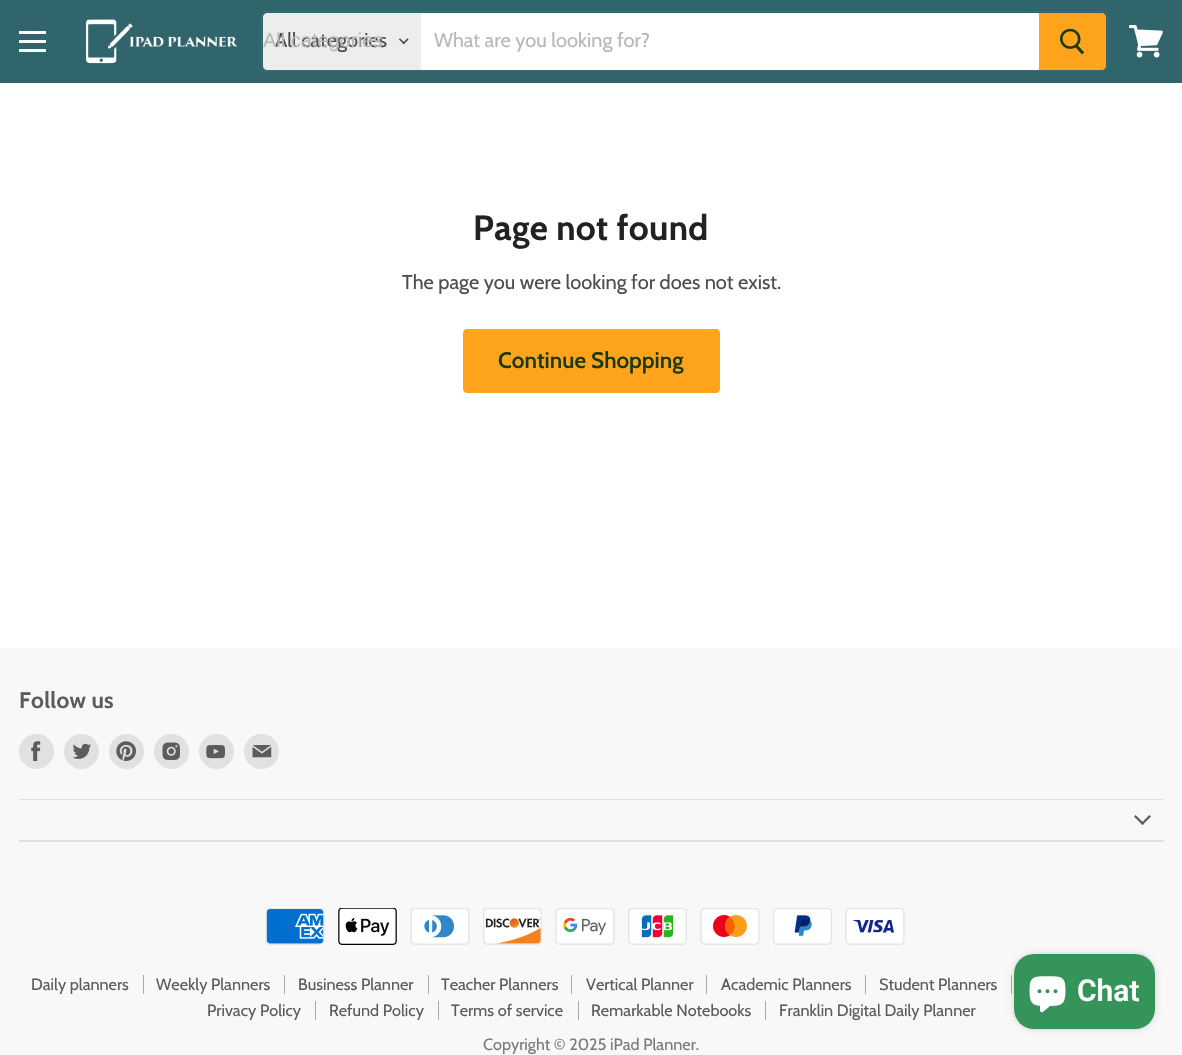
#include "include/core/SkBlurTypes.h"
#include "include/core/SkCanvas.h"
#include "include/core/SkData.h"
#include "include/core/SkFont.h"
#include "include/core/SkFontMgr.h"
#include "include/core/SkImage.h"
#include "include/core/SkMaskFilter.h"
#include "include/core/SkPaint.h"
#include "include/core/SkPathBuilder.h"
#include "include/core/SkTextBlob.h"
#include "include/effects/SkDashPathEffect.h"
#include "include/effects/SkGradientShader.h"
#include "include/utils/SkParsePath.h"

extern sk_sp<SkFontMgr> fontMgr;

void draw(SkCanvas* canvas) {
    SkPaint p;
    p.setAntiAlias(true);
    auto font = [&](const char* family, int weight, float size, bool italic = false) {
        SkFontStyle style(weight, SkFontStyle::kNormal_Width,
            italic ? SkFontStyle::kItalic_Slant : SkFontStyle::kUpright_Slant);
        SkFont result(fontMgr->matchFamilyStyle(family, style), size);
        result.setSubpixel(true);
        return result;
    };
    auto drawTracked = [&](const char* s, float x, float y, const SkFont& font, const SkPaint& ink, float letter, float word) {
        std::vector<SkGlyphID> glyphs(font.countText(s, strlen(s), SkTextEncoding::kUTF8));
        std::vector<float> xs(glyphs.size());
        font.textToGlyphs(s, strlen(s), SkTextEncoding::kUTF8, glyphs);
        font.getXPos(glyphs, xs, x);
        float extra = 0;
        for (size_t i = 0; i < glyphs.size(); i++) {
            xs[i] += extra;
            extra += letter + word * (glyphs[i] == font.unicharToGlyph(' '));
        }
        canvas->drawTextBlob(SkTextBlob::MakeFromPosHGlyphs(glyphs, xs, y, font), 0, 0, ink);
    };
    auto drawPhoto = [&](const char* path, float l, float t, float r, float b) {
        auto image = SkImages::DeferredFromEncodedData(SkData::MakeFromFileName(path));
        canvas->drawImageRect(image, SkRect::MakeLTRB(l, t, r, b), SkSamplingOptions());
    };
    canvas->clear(0xFFFFFFFF);
    {
        const struct { float l, t, r, b; SkColor color; } items[] = {
            {0, 0, 1182, 83, 0xFF30656B},
            {19, 31, 46, 34, 0xFFFFFFFF},
            {19, 40, 46, 43, 0xFFFFFFFF},
            {19, 49, 46, 52, 0xFFFFFFFF},
        };
        for (auto [l, t, r, b, color] : items) {
            p.setColor(color);
            canvas->drawRect(SkRect::MakeLTRB(l, t, r, b), p);
        }
    }
    drawPhoto("media/1.png", 85, 19, 238, 64);
    p.setStyle(SkPaint::kStroke_Style);
    p.setStrokeWidth(1);
    p.setColor(0x33808080);
    canvas->drawRoundRect(SkRect::MakeLTRB(261.5f, 11.5f, 1107.5f, 70.5f), 4.5f, 4.5f, p);
    p.setStyle(SkPaint::kFill_Style);
    p.setColor(0xFFEDEDED);
    canvas->drawPath(SkPathBuilder().moveTo(267, 13).lineTo(421, 13).lineTo(421, 70).lineTo(267, 70).cubicTo(265, 70, 263, 68, 263, 66).lineTo(263, 17).cubicTo(263, 15, 265, 13, 267, 13).close().detach(), p);
    auto font1 = font("Cabin", 400, 20);
    p.setColor(0xFF4D4D4D);
    canvas->drawString("All categories", 275, 47, font1, p);
    auto font2 = font("Liberation Sans", 400, 20);
    p.setColor(0xFFB8B8B8);
    canvas->drawString("All categories", 263, 47, font2, p);
    drawPhoto("media/2.png", 399, 38, 409, 45);
    p.setColor(0xFFFFFFFF);
    canvas->drawRect(SkRect::MakeLTRB(421, 13, 1039, 70), p);
    p.setColor(0xFFB8B8B8);
    canvas->drawString("What are you looking for?", 434, 47, font1, p);
    p.setColor(0xFFFFA41C);
    canvas->drawPath(SkPathBuilder().moveTo(1039.5f, 13.5f).lineTo(1102, 13.5f).cubicTo(1104, 13.5f, 1105.5f, 15, 1105.5f, 17).lineTo(1105.5f, 66).cubicTo(1105.5f, 68, 1104, 69.5f, 1102, 69.5f).lineTo(1039.5f, 69.5f).close().detach(), p);
    p.setStyle(SkPaint::kStroke_Style);
    canvas->drawPath(SkPathBuilder().moveTo(1039.5f, 13.5f).lineTo(1102, 13.5f).cubicTo(1104, 13.5f, 1105.5f, 15, 1105.5f, 17).lineTo(1105.5f, 66).cubicTo(1105.5f, 68, 1104, 69.5f, 1102, 69.5f).lineTo(1039.5f, 69.5f).close().detach(), p);
    drawPhoto("media/3.png", 1060, 29, 1085, 55);
    drawPhoto("media/4.png", 1129, 25, 1163, 58);
    auto font3 = font("Cabin", 700, 35);
    p.setStyle(SkPaint::kFill_Style);
    p.setColor(0xFF222222);
    drawTracked("Page not found", 473, 240, font3, p, 0.3f, 0);
    p.setColor(0xFF4D4D4D);
    canvas->drawString("The page you were looking for does not exist.", 402, 289, font1, p);
    p.setColor(0xFFFFA41C);
    canvas->drawRoundRect(SkRect::MakeLTRB(463.5f, 329.5f, 719.5f, 392.5f), 3.5f, 3.5f, p);
    p.setStyle(SkPaint::kStroke_Style);
    canvas->drawRoundRect(SkRect::MakeLTRB(463.5f, 329.5f, 719.5f, 392.5f), 3.5f, 3.5f, p);
    auto font4 = font("Cabin", 600, 22.5f);
    p.setStyle(SkPaint::kFill_Style);
    p.setColor(0xFF1A390C);
    canvas->drawString("Continue Shopping", 498, 368, font4, p);
    p.setColor(0xFFF8F8F8);
    canvas->drawRect(SkRect::MakeLTRB(0, 648, 1182, 1055), p);
    p.setColor(0xFFE1E1E1);
    canvas->drawRect(SkRect::MakeLTRB(19, 799, 1164, 800), p);
    auto font5 = font("Cabin", 700, 22.5f);
    p.setColor(0xFF5C5C5C);
    drawTracked("Follow us", 19, 708, font5, p, 0.25f, 0);
    p.setColor(0xFFE1E1E1);
    canvas->drawCircle(36.5f, 751.5f, 17.5f, p);
    drawPhoto("media/5.png", 31, 741, 41, 761);
    canvas->drawCircle(81.5f, 751.5f, 17.5f, p);
    drawPhoto("media/6.png", 72, 743, 91, 759);
    canvas->drawCircle(126.5f, 751.5f, 17.5f, p);
    drawPhoto("media/7.png", 116, 741, 136, 761);
    canvas->drawCircle(171.5f, 751.5f, 17.5f, p);
    drawPhoto("media/8.png", 162, 742, 180, 760);
    canvas->drawCircle(216.5f, 751.5f, 17.5f, p);
    drawPhoto("media/9.png", 206, 745, 225, 759);
    canvas->drawCircle(261.5f, 751.5f, 17.5f, p);
    drawPhoto("media/10.png", 252, 745, 272, 758);
    canvas->drawRect(SkRect::MakeLTRB(19, 840, 1164, 842), p);
    drawPhoto("media/11.png", 1134, 815, 1151, 825);
    drawPhoto("media/12.png", 265, 908, 325, 945);
    drawPhoto("media/13.png", 338, 908, 397, 945);
    drawPhoto("media/14.png", 410, 908, 470, 945);
    drawPhoto("media/15.png", 483, 908, 542, 945);
    drawPhoto("media/16.png", 555, 908, 615, 945);
    drawPhoto("media/17.png", 628, 908, 687, 945);
    drawPhoto("media/18.png", 700, 908, 760, 945);
    drawPhoto("media/19.png", 773, 908, 832, 945);
    drawPhoto("media/20.png", 845, 908, 905, 945);
    p.setColor(0xFFAAAAAA);
    canvas->drawRect(SkRect::MakeLTRB(143, 975, 144, 994), p);
    auto font6 = font("Cabin", 400, 16.25f);
    p.setColor(0xFF5C5C5C);
    canvas->drawString("Daily planners", 31, 990, font6, p);
    p.setColor(0xFFAAAAAA);
    canvas->drawRect(SkRect::MakeLTRB(284, 975, 285, 994), p);
    p.setColor(0xFF5C5C5C);
    canvas->drawString("Weekly Planners", 156, 990, font6, p);
    p.setColor(0xFFAAAAAA);
    canvas->drawRect(SkRect::MakeLTRB(428, 975, 429, 994), p);
    p.setColor(0xFF5C5C5C);
    canvas->drawString("Business Planner", 298, 990, font6, p);
    p.setColor(0xFFAAAAAA);
    canvas->drawRect(SkRect::MakeLTRB(571, 975, 572, 994), p);
    p.setColor(0xFF5C5C5C);
    canvas->drawString("Teacher Planners", 441, 990, font6, p);
    p.setColor(0xFFAAAAAA);
    canvas->drawRect(SkRect::MakeLTRB(706, 975, 707, 994), p);
    p.setColor(0xFF5C5C5C);
    canvas->drawString("Vertical Planner", 586, 990, font6, p);
    p.setColor(0xFFAAAAAA);
    canvas->drawRect(SkRect::MakeLTRB(865, 975, 866, 994), p);
    p.setColor(0xFF5C5C5C);
    canvas->drawString("Academic Planners", 721, 990, font6, p);
    p.setColor(0xFFAAAAAA);
    canvas->drawRect(SkRect::MakeLTRB(1011, 975, 1012, 994), p);
    p.setColor(0xFF5C5C5C);
    canvas->drawString("Student Planners", 879, 990, font6, p);
    p.setColor(0xFFAAAAAA);
    canvas->drawRect(SkRect::MakeLTRB(315, 1001, 316, 1020), p);
    p.setColor(0xFF5C5C5C);
    canvas->drawString("Privacy Policy", 207, 1016, font6, p);
    p.setColor(0xFFAAAAAA);
    canvas->drawRect(SkRect::MakeLTRB(438, 1001, 439, 1020), p);
    p.setColor(0xFF5C5C5C);
    canvas->drawString("Refund Policy", 329, 1016, font6, p);
    p.setColor(0xFFAAAAAA);
    canvas->drawRect(SkRect::MakeLTRB(578, 1001, 579, 1020), p);
    p.setColor(0xFF5C5C5C);
    canvas->drawString("Terms of service", 451, 1016, font6, p);
    p.setColor(0xFFAAAAAA);
    canvas->drawRect(SkRect::MakeLTRB(765, 1001, 766, 1020), p);
    p.setColor(0xFF5C5C5C);
    canvas->drawString("Remarkable Notebooks", 591, 1016, font6, p);
    canvas->drawString("Franklin Digital Daily Planner", 779, 1016, font6, p);
    p.setColor(0xFF7B7B7B);
    canvas->drawString("Copyright © 2025 iPad Planner.", 483, 1050, font6, p);
    p.setColor(0x26000000);
    p.setMaskFilter(SkMaskFilter::MakeBlur(kNormal_SkBlurStyle, 3));
    canvas->drawRoundRect(SkRect::MakeLTRB(1014, 954, 1155, 1029), 20, 20, p);
    p.setMaskFilter(nullptr);
    p.setColor(0xFF359459);
    canvas->drawRoundRect(SkRect::MakeLTRB(1014, 954, 1155, 1029), 20, 20, p);
    drawPhoto("media/21.png", 1029, 976, 1066, 1013);
    auto font7 = font("Roboto", 600, 30);
    p.setColor(0xFFFFFFFF);
    canvas->drawString("Chat", 1077, 1001, font7, p);
}
